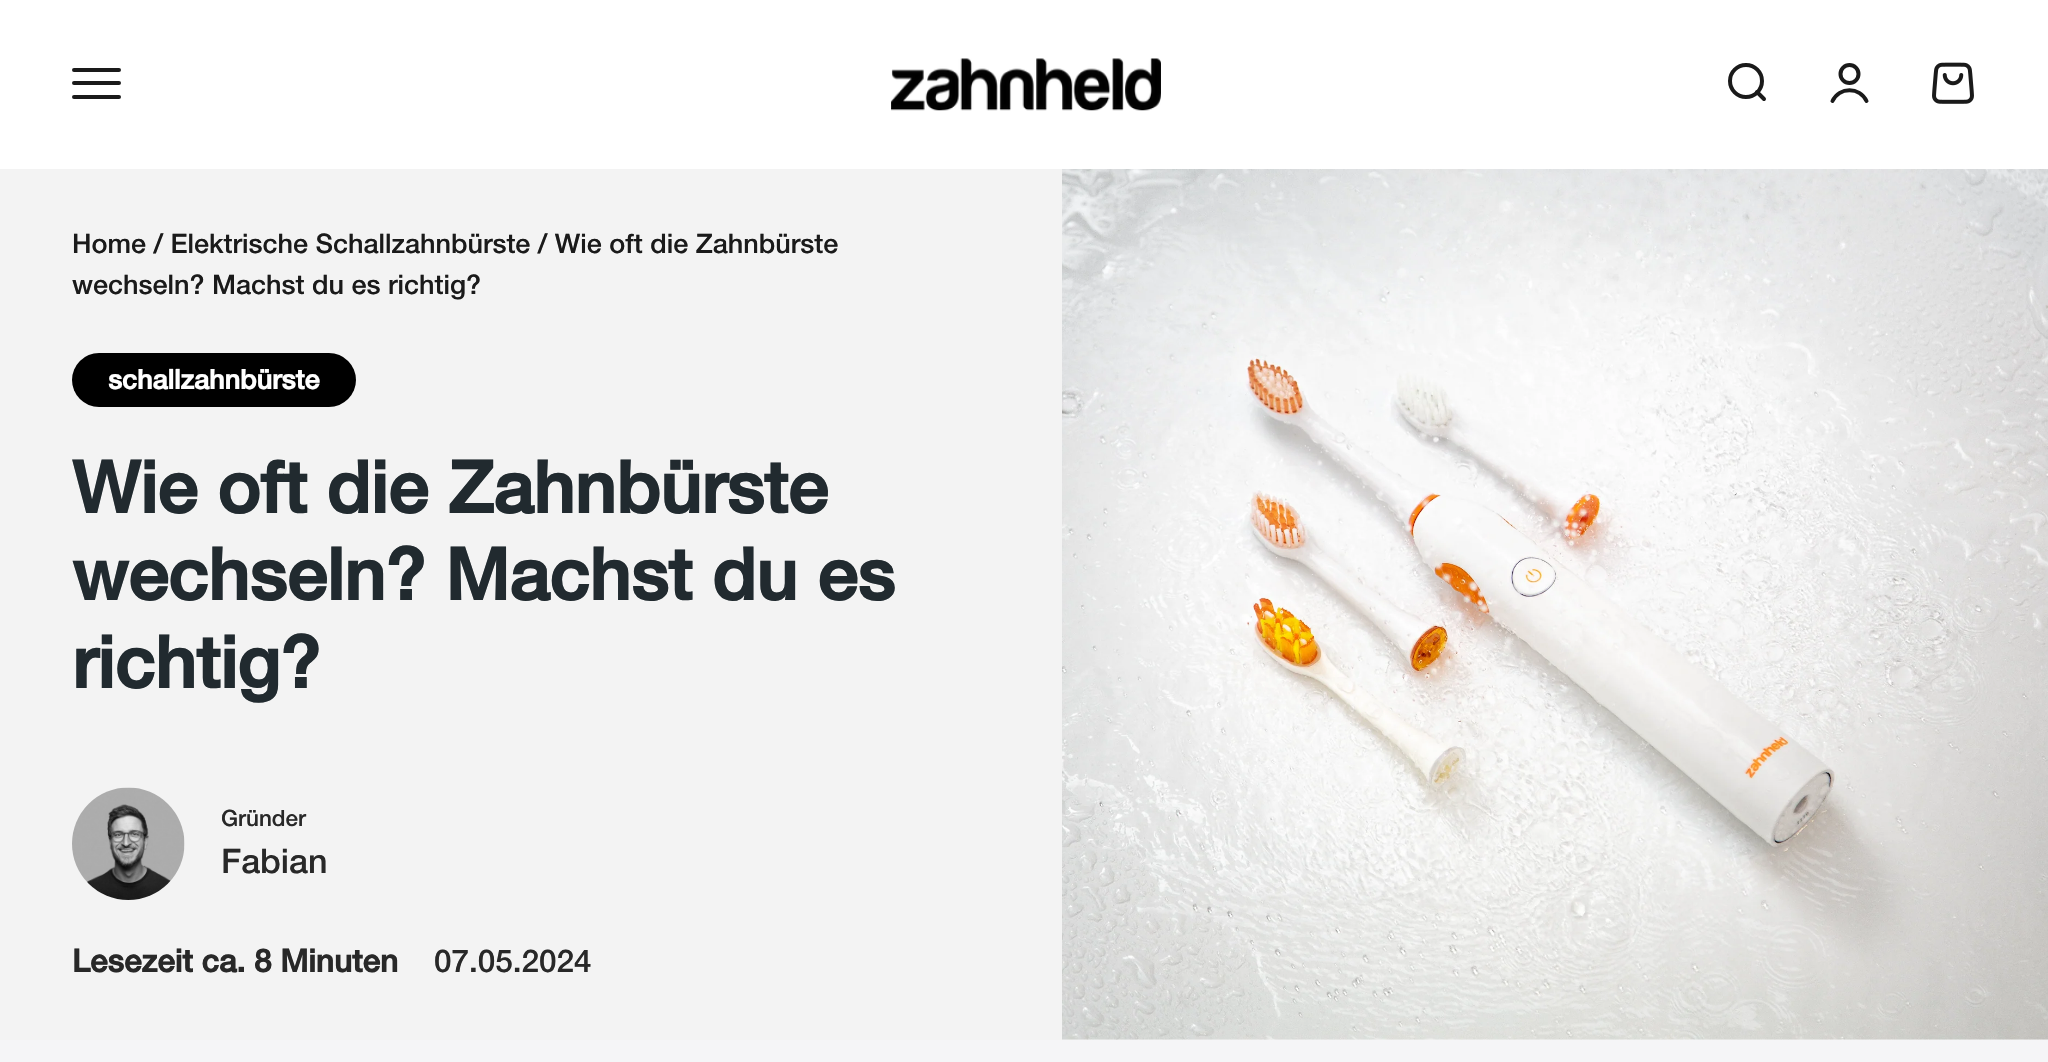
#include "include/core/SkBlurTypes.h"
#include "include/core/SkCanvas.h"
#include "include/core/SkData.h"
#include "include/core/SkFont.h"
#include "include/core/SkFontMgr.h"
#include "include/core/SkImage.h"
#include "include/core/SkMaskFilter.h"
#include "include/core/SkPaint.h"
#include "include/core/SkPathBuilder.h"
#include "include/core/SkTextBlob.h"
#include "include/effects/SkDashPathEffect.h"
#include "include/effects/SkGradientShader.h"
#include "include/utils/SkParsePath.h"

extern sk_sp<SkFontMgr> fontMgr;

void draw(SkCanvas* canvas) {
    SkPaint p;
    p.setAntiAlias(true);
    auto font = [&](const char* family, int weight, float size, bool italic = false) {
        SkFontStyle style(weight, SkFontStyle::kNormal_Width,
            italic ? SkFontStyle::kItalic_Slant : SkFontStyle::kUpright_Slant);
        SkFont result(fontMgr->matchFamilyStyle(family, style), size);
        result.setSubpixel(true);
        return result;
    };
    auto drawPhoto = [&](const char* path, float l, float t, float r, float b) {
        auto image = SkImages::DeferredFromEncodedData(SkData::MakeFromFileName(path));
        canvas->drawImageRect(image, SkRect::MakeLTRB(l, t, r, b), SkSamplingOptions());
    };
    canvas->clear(0xFFF5F5F7);
    p.setColor(0xFFFFFFFF);
    canvas->drawRect(SkRect::MakeLTRB(0, 0, 2048, 169), p);
    p.setStyle(SkPaint::kStroke_Style);
    p.setStrokeWidth(4);
    p.setStrokeCap(SkPaint::kRound_Cap);
    p.setColor(0xFF1A1A1A);
    canvas->drawPath(SkPathBuilder().moveTo(74, 70).lineTo(119, 70).moveTo(74, 83).lineTo(119, 83).moveTo(74, 97).lineTo(119, 97).detach(), p);
    drawPhoto("media/1.png", 891, 58, 1161, 111);
    p.setStrokeCap(SkPaint::kButt_Cap);
    canvas->drawCircle(1746, 81, 16, p);
    p.setStrokeCap(SkPaint::kRound_Cap);
    p.setStrokeJoin(SkPaint::kRound_Join);
    canvas->drawPath(SkPathBuilder().moveTo(1757, 92).lineTo(1764, 99).detach(), p);
    p.setStrokeCap(SkPaint::kButt_Cap);
    p.setStrokeJoin(SkPaint::kMiter_Join);
    canvas->drawCircle(1849.5f, 74, 9, p);
    p.setStrokeCap(SkPaint::kRound_Cap);
    canvas->drawPath(SkPathBuilder().moveTo(1832.5f, 101).cubicTo(1839.5f, 86.5f, 1859.5f, 86.5f, 1866.5f, 101).detach(), p);
    drawPhoto("media/2.png", 1932, 62, 1974, 104);
    p.setStyle(SkPaint::kFill_Style);
    p.setColor(0xFFF3F3F3);
    canvas->drawRect(SkRect::MakeLTRB(0, 169, 2048, 1040), p);
    auto font1 = font("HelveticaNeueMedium", 500, 27);
    p.setColor(0xFF1A1A1A);
    canvas->drawString("Home / Elektrische Schallzahnbürste / Wie oft die Zahnbürste", 72, 253, font1, p);
    canvas->drawString("wechseln? Machst du es richtig?", 72, 294, font1, p);
    p.setColor(0xFF000000);
    canvas->drawRoundRect(SkRect::MakeLTRB(72, 353, 356, 407), 27, 27, p);
    auto font2 = font("HelveticaNeueMedium", 700, 27);
    p.setColor(0xFFFFFFFF);
    canvas->drawString("schallzahnbürste", 108, 389, font2, p);
    auto font3 = font("HelveticaNeueMedium", 700, 72);
    p.setColor(0xFF212A2F);
    {
        const struct { const char* s; float x, y; } items[] = {
            {"Wie oft die Zahnbürste", 72, 513},
            {"wechseln? Machst du es", 72, 600},
            {"richtig?", 72, 688},
        };
        for (auto [s, x, y] : items) {
            canvas->drawString(s, x, y, font3, p);
        }
    }
    drawPhoto("media/3.png", 72, 787, 185, 900);
    auto font4 = font("HelveticaNeueMedium", 500, 22.5f);
    p.setColor(0xFF282828);
    canvas->drawString("Gründer", 221, 826, font4, p);
    auto font5 = font("HelveticaNeueMedium", 500, 34);
    canvas->drawString("Fabian", 221, 873, font5, p);
    auto font6 = font("HelveticaNeueMedium", 700, 31.5f);
    canvas->drawString("Lesezeit ca. 8 Minuten", 72, 972, font6, p);
    auto font7 = font("HelveticaNeueMedium", 500, 31.5f);
    canvas->drawString("07.05.2024", 434, 972, font7, p);
    drawPhoto("media/4.png", 1062, 169, 2048, 1040);
}
